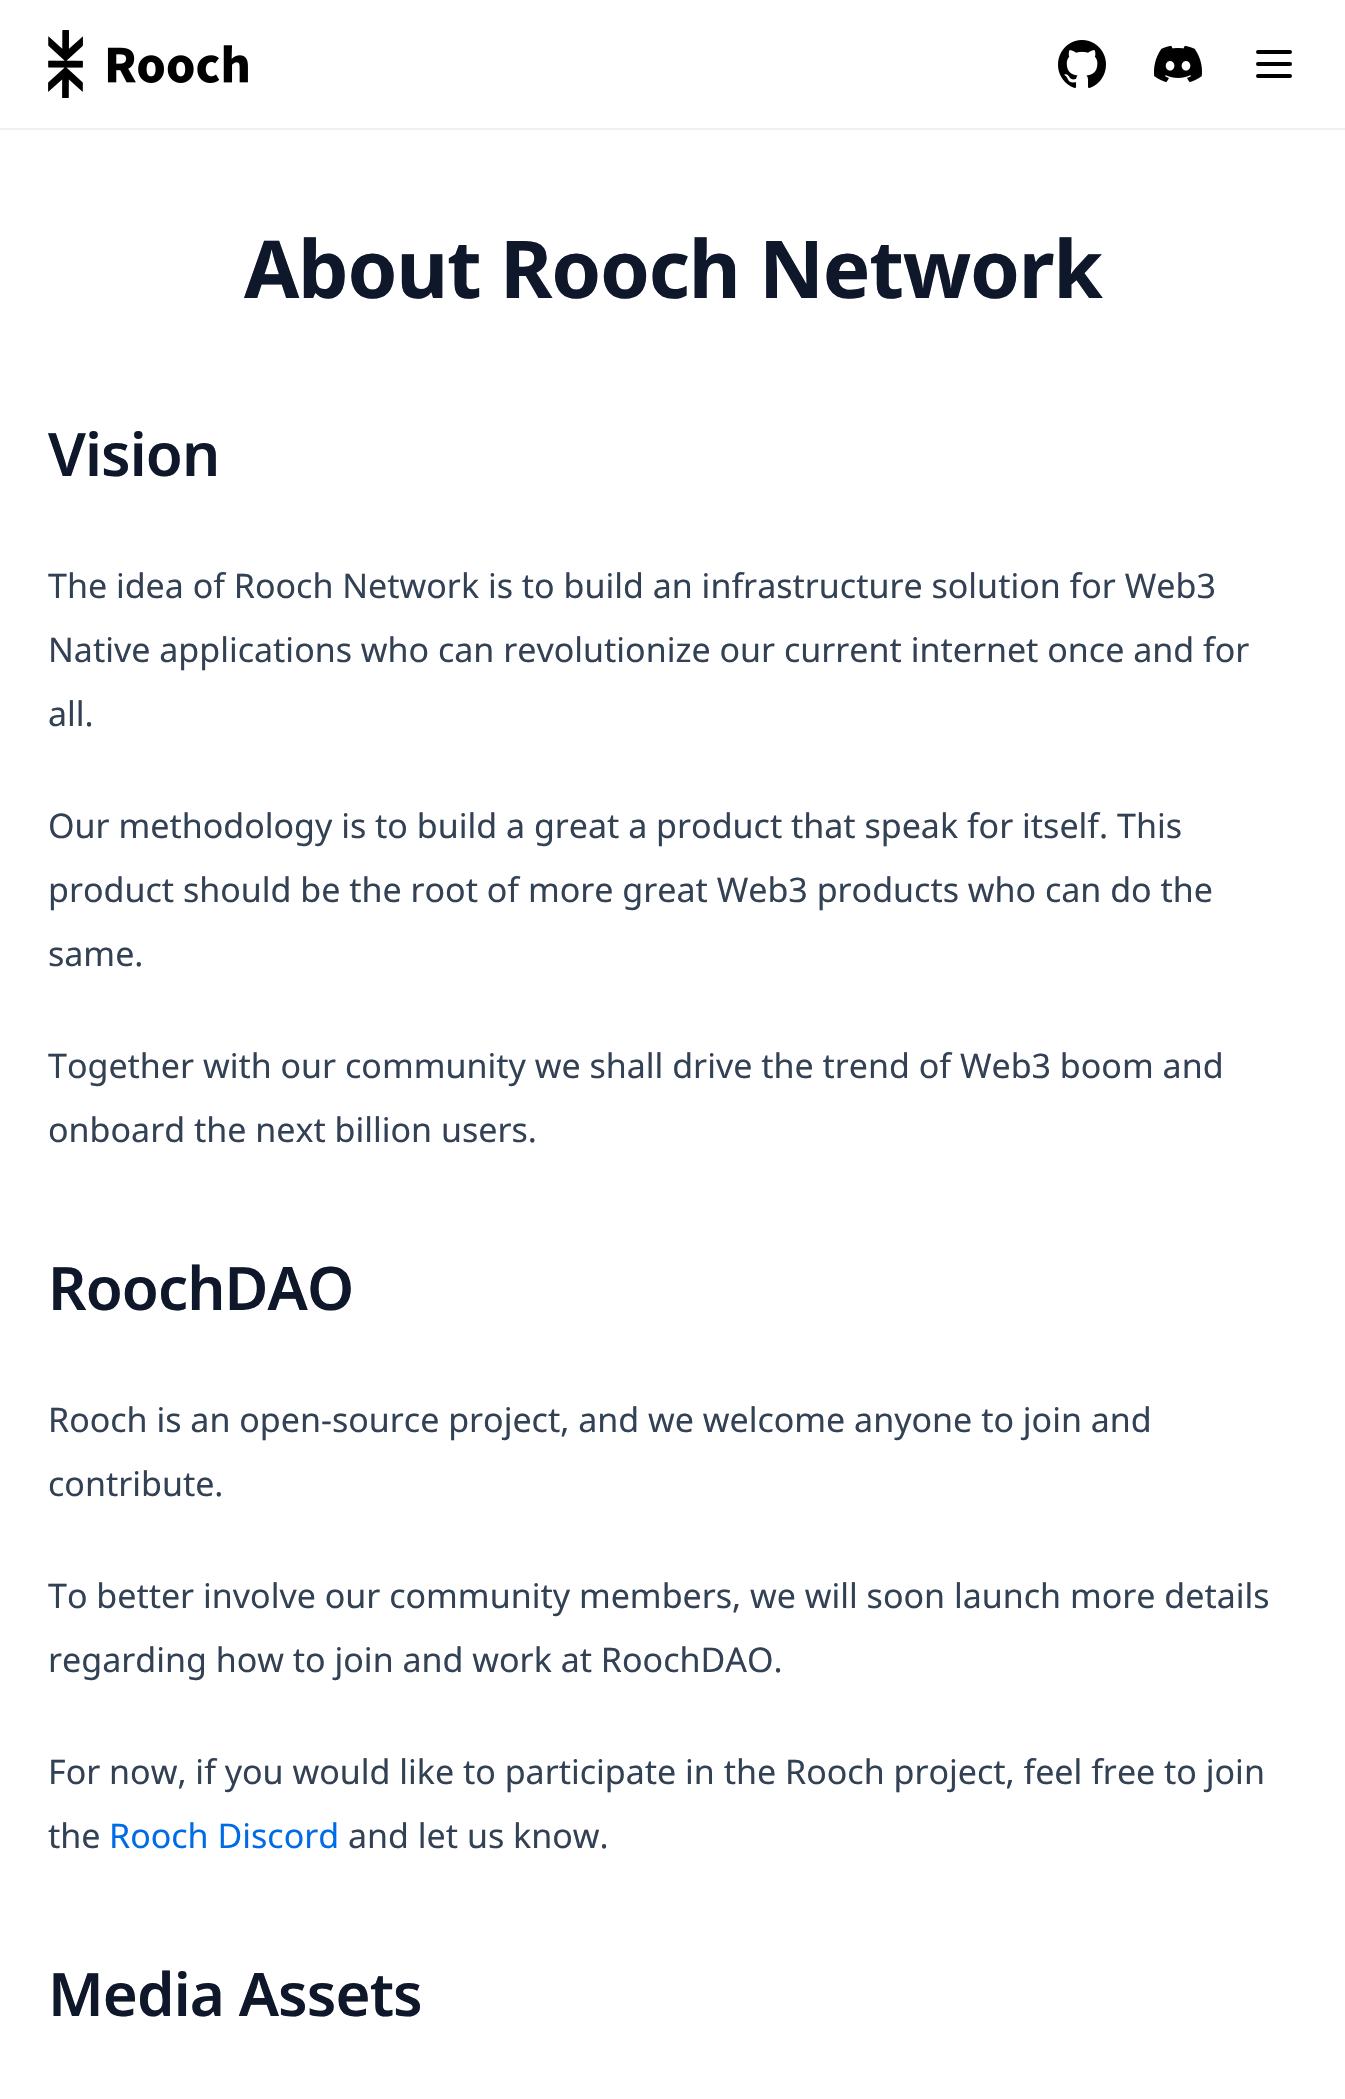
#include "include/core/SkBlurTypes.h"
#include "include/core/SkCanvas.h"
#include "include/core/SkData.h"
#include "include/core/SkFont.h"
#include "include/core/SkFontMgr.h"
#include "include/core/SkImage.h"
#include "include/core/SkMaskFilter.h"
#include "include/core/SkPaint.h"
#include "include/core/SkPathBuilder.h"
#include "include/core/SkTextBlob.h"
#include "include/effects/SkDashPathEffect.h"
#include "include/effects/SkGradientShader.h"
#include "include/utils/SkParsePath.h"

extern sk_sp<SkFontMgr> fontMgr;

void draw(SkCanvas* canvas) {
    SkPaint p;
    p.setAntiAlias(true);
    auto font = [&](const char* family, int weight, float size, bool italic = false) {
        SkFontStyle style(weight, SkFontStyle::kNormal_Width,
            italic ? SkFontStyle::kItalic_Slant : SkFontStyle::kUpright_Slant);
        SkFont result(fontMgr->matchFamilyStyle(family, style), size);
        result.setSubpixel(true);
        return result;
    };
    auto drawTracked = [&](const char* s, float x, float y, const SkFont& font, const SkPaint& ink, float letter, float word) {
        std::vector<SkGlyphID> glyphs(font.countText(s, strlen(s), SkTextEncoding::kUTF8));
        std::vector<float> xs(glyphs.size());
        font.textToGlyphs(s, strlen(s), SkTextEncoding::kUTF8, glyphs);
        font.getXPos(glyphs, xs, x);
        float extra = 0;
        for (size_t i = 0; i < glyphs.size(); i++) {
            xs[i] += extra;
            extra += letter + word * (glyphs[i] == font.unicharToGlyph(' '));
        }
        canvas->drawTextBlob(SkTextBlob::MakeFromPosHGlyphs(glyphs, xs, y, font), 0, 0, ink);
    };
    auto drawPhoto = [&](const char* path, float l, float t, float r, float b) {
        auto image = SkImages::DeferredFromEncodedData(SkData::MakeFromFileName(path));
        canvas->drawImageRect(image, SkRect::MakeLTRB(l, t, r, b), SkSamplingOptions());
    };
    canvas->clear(0xFFFFFFFF);
    drawPhoto("media/1.png", 48, 30, 248, 98);
    drawPhoto("media/2.png", 1058, 40, 1106, 88);
    drawPhoto("media/3.png", 1154, 45, 1202, 83);
    p.setStyle(SkPaint::kStroke_Style);
    p.setStrokeWidth(4);
    p.setStrokeCap(SkPaint::kRound_Cap);
    p.setStrokeJoin(SkPaint::kRound_Join);
    p.setColor(0xFF000000);
    canvas->drawPath(SkPathBuilder().moveTo(1258, 52).lineTo(1290, 52).moveTo(1258, 64).lineTo(1290, 64).moveTo(1258, 76).lineTo(1290, 76).detach(), p);
    p.setStyle(SkPaint::kFill_Style);
    p.setColor(0xFFF0F0F0);
    canvas->drawRect(SkRect::MakeLTRB(0, 128, 1345, 130), p);
    auto font1 = font("Noto Sans", 700, 80);
    p.setColor(0xFF0F172A);
    drawTracked("About Rooch Network", 244, 298, font1, p, -1.25f, 0);
    auto font2 = font("Noto Sans", 600, 60);
    drawTracked("Vision", 48, 476, font2, p, -0.9f, 0);
    auto font3 = font("Noto Sans", 400, 34);
    p.setColor(0xFF334155);
    {
        const struct { const char* s; float x, y; } items[] = {
            {"The idea of Rooch Network is to build an infrastructure solution for Web3", 48, 598},
            {"Native applications who can revolutionize our current internet once and for", 48, 662},
            {"all.", 48, 726},
            {"Our methodology is to build a great a product that speak for itself. This", 48, 838},
            {"product should be the root of more great Web3 products who can do the", 48, 902},
            {"same.", 48, 966},
            {"Together with our community we shall drive the trend of Web3 boom and", 48, 1078},
            {"onboard the next billion users.", 48, 1142},
        };
        for (auto [s, x, y] : items) {
            canvas->drawString(s, x, y, font3, p);
        }
    }
    p.setColor(0xFF0F172A);
    drawTracked("RoochDAO", 48, 1310, font2, p, -0.9f, 0);
    p.setColor(0xFF334155);
    {
        const struct { const char* s; float x, y; } items[] = {
            {"Rooch is an open-source project, and we welcome anyone to join and", 48, 1432},
            {"contribute.", 48, 1496},
            {"To better involve our community members, we will soon launch more details", 48, 1608},
            {"regarding how to join and work at RoochDAO.", 48, 1672},
            {"For now, if you would like to participate in the Rooch project, feel free to join", 48, 1784},
            {"the", 48, 1848},
        };
        for (auto [s, x, y] : items) {
            canvas->drawString(s, x, y, font3, p);
        }
    }
    p.setColor(0xFF006BE6);
    canvas->drawString("Rooch Discord", 109, 1848, font3, p);
    p.setColor(0xFF334155);
    canvas->drawString("and let us know.", 348, 1848, font3, p);
    p.setColor(0xFF0F172A);
    drawTracked("Media Assets", 48, 2016, font2, p, -0.9f, 0);
}
